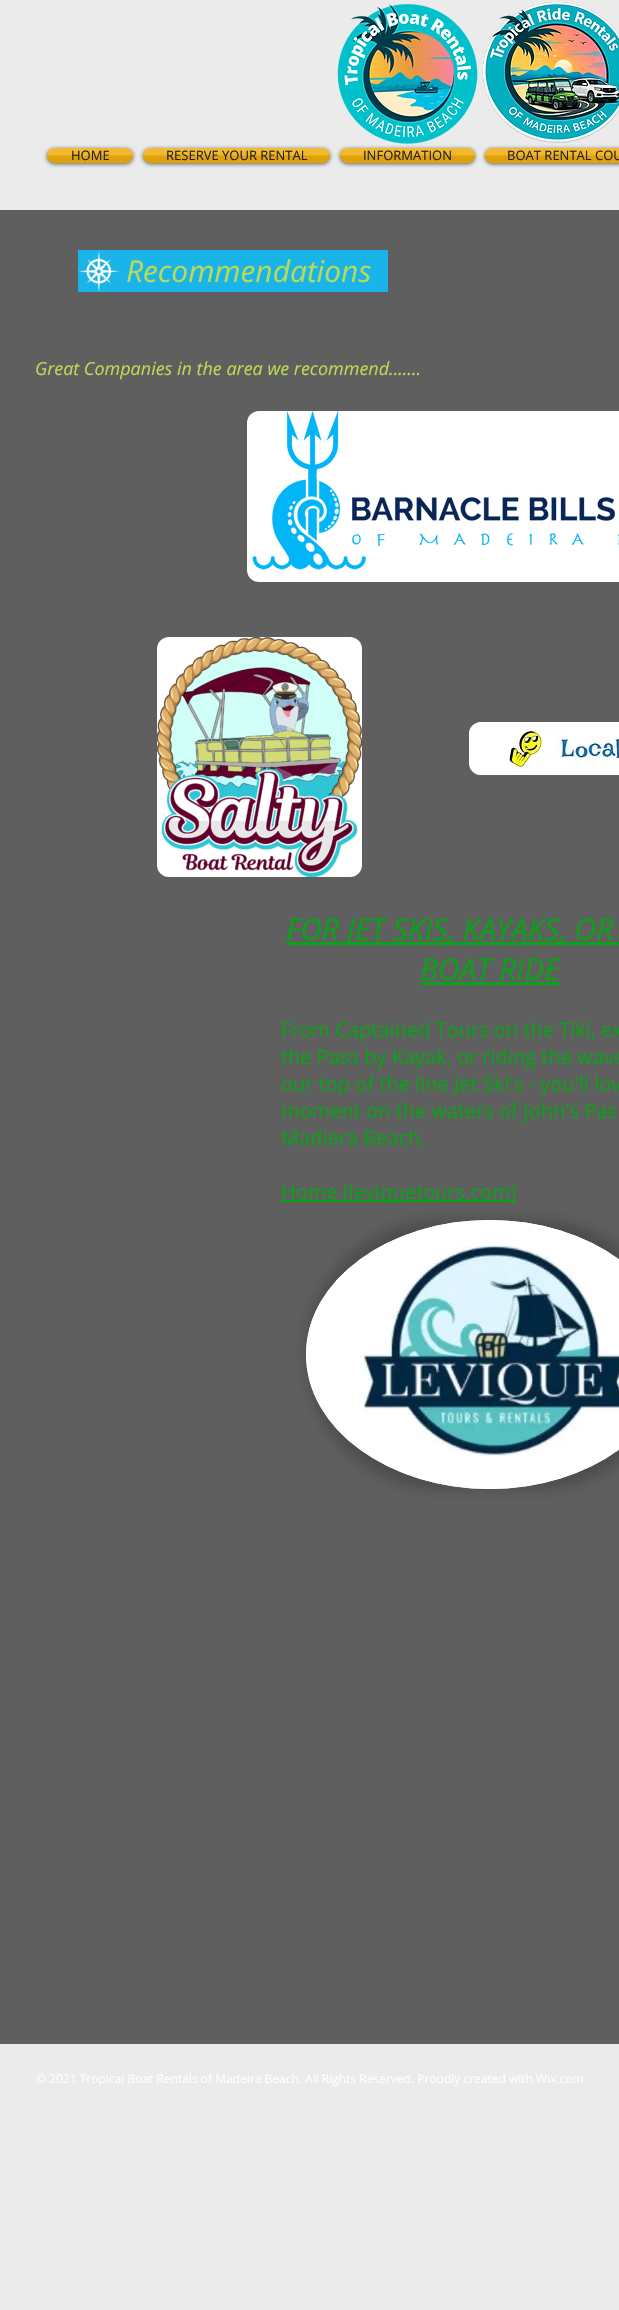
#include "include/core/SkBlurTypes.h"
#include "include/core/SkCanvas.h"
#include "include/core/SkData.h"
#include "include/core/SkFont.h"
#include "include/core/SkFontMgr.h"
#include "include/core/SkImage.h"
#include "include/core/SkMaskFilter.h"
#include "include/core/SkPaint.h"
#include "include/core/SkPathBuilder.h"
#include "include/core/SkTextBlob.h"
#include "include/effects/SkDashPathEffect.h"
#include "include/effects/SkGradientShader.h"
#include "include/utils/SkParsePath.h"

extern sk_sp<SkFontMgr> fontMgr;

void draw(SkCanvas* canvas) {
    SkPaint p;
    p.setAntiAlias(true);
    auto font = [&](const char* family, int weight, float size, bool italic = false) {
        SkFontStyle style(weight, SkFontStyle::kNormal_Width,
            italic ? SkFontStyle::kItalic_Slant : SkFontStyle::kUpright_Slant);
        SkFont result(fontMgr->matchFamilyStyle(family, style), size);
        result.setSubpixel(true);
        return result;
    };
    auto drawPhoto = [&](const char* path, float l, float t, float r, float b) {
        auto image = SkImages::DeferredFromEncodedData(SkData::MakeFromFileName(path));
        canvas->drawImageRect(image, SkRect::MakeLTRB(l, t, r, b), SkSamplingOptions());
    };
    canvas->clear(0xFFEBEBEB);
    drawPhoto("media/1.png", 337, 4, 478, 144);
    drawPhoto("media/2.png", 482, 1, 619, 143);
    p.setColor(0x99000000);
    p.setMaskFilter(SkMaskFilter::MakeBlur(kNormal_SkBlurStyle, 2));
    canvas->drawRoundRect(SkRect::MakeLTRB(47, 149, 133, 164), 7.5f, 7.5f, p);
    p.setMaskFilter(nullptr);
    p.setColor(0xFFF0AC0A);
    canvas->drawRoundRect(SkRect::MakeLTRB(47, 148, 133, 163), 7.5f, 7.5f, p);
    drawPhoto("media/3.png", 47, 148, 133, 163);
    auto font1 = font("Open Sans", 400, 13);
    p.setColor(0xFF1D2123);
    canvas->drawString("HOME", 71, 160, font1, p);
    p.setColor(0x99000000);
    p.setMaskFilter(SkMaskFilter::MakeBlur(kNormal_SkBlurStyle, 2));
    canvas->drawRoundRect(SkRect::MakeLTRB(143, 149, 330, 164), 7.5f, 7.5f, p);
    p.setMaskFilter(nullptr);
    p.setColor(0xFFF0AC0A);
    canvas->drawRoundRect(SkRect::MakeLTRB(143, 148, 330, 163), 7.5f, 7.5f, p);
    drawPhoto("media/4.png", 143, 148, 330, 163);
    p.setColor(0xFF1D2123);
    canvas->drawString("RESERVE YOUR RENTAL", 166, 160, font1, p);
    p.setColor(0x99000000);
    p.setMaskFilter(SkMaskFilter::MakeBlur(kNormal_SkBlurStyle, 2));
    canvas->drawRoundRect(SkRect::MakeLTRB(340, 149, 475, 164), 7.5f, 7.5f, p);
    p.setMaskFilter(nullptr);
    p.setColor(0xFFF0AC0A);
    canvas->drawRoundRect(SkRect::MakeLTRB(340, 148, 475, 163), 7.5f, 7.5f, p);
    drawPhoto("media/5.png", 340, 148, 475, 163);
    p.setColor(0xFF1D2123);
    canvas->drawString("INFORMATION", 363, 160, font1, p);
    p.setColor(0x99000000);
    p.setMaskFilter(SkMaskFilter::MakeBlur(kNormal_SkBlurStyle, 2));
    canvas->drawRoundRect(SkRect::MakeLTRB(485, 149, 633, 164), 7.5f, 7.5f, p);
    p.setMaskFilter(nullptr);
    p.setColor(0xFFF0AC0A);
    canvas->drawRoundRect(SkRect::MakeLTRB(485, 148, 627, 163), 7.5f, 7.5f, p);
    drawPhoto("media/6.png", 485, 148, 619, 163);
    p.setColor(0xFF1D2123);
    canvas->drawString("BOAT RENTAL COU", 507, 160, font1, p);
    p.setColor(0xFF5F5F5F);
    canvas->drawRect(SkRect::MakeLTRB(0, 210, 619, 2044), p);
    p.setColor(0xFF1BB4E8);
    canvas->drawRect(SkRect::MakeLTRB(78, 250, 388, 292), p);
    drawPhoto("media/7.png", 78, 251, 119, 292);
    auto font2 = font("Open Sans", 400, 30, true);
    p.setColor(0xFFBADA55);
    canvas->drawString("Recommendations", 126, 282, font2, p);
    auto font3 = font("Open Sans", 400, 18, true);
    canvas->drawString("Great Companies in the area we recommend.......", 35, 375, font3, p);
    p.setColor(0xFFFFFFFF);
    canvas->drawRoundRect(SkRect::MakeLTRB(247, 411, 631, 582), 12, 12, p);
    drawPhoto("media/8.png", 252, 411, 619, 570);
    canvas->drawRoundRect(SkRect::MakeLTRB(157, 637, 362, 877), 12, 12, p);
    drawPhoto("media/9.png", 157, 637, 362, 877);
    canvas->drawRoundRect(SkRect::MakeLTRB(469, 722, 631, 775), 12, 12, p);
    drawPhoto("media/10.png", 469, 722, 619, 775);
    p.setColor(0xFF08A316);
    canvas->drawRect(SkRect::MakeLTRB(286, 942, 619, 945), p);
    canvas->drawString("FOR JET SKIS, KAYAKS, OR", 286, 940, font2, p);
    canvas->drawString("BOAT RIDE", 420, 980, font2, p);
    canvas->drawRect(SkRect::MakeLTRB(420, 982, 560, 985), p);
    auto font4 = font("Open Sans", 400, 20);
    {
        const struct { const char* s; float x, y; } items[] = {
            {"From Captained Tours on the Tiki, ex", 281, 1037},
            {"the Pass by Kayak, or riding the wave", 281, 1064},
            {"our top of the line Jet Ski's - you'll lov", 281, 1091},
            {"moment on the waters of John's Pas", 281, 1118},
            {"Madiera Beach.", 281, 1145},
        };
        for (auto [s, x, y] : items) {
            canvas->drawString(s, x, y, font4, p);
        }
    }
    canvas->drawRect(SkRect::MakeLTRB(281, 1200, 516, 1202), p);
    canvas->drawString("Home (leviquetours.com)", 281, 1199, font4, p);
    p.setColor(0x33000000);
    p.setMaskFilter(SkMaskFilter::MakeBlur(kNormal_SkBlurStyle, 7));
    canvas->drawRoundRect(SkRect::MakeLTRB(306, 1220, 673, 1489), 134.5f, 134.5f, p);
    p.setMaskFilter(nullptr);
    p.setColor(0xFFFFFFFF);
    canvas->drawOval(SkRect::MakeLTRB(306, 1220, 673, 1489), p);
    p.setStyle(SkPaint::kStroke_Style);
    p.setStrokeWidth(6);
    canvas->drawPath(SkPathBuilder().moveTo(489.5f, 1223).cubicTo(589, 1223, 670, 1282, 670, 1354.5f).cubicTo(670, 1427, 589, 1486, 489.5f, 1486).cubicTo(390, 1486, 309, 1427, 309, 1354.5f).cubicTo(309, 1282, 390, 1223, 489.5f, 1223).close().detach(), p);
    drawPhoto("media/11.png", 360, 1244, 619, 1458);
    auto font5 = font("Open Sans", 400, 12);
    p.setStyle(SkPaint::kFill_Style);
    canvas->drawString("© 2021 Tropical Boat Rentals of Madeira Beach. All Rights Reserved. Proudly created with Wix.com", 36, 2083, font5, p);
}
